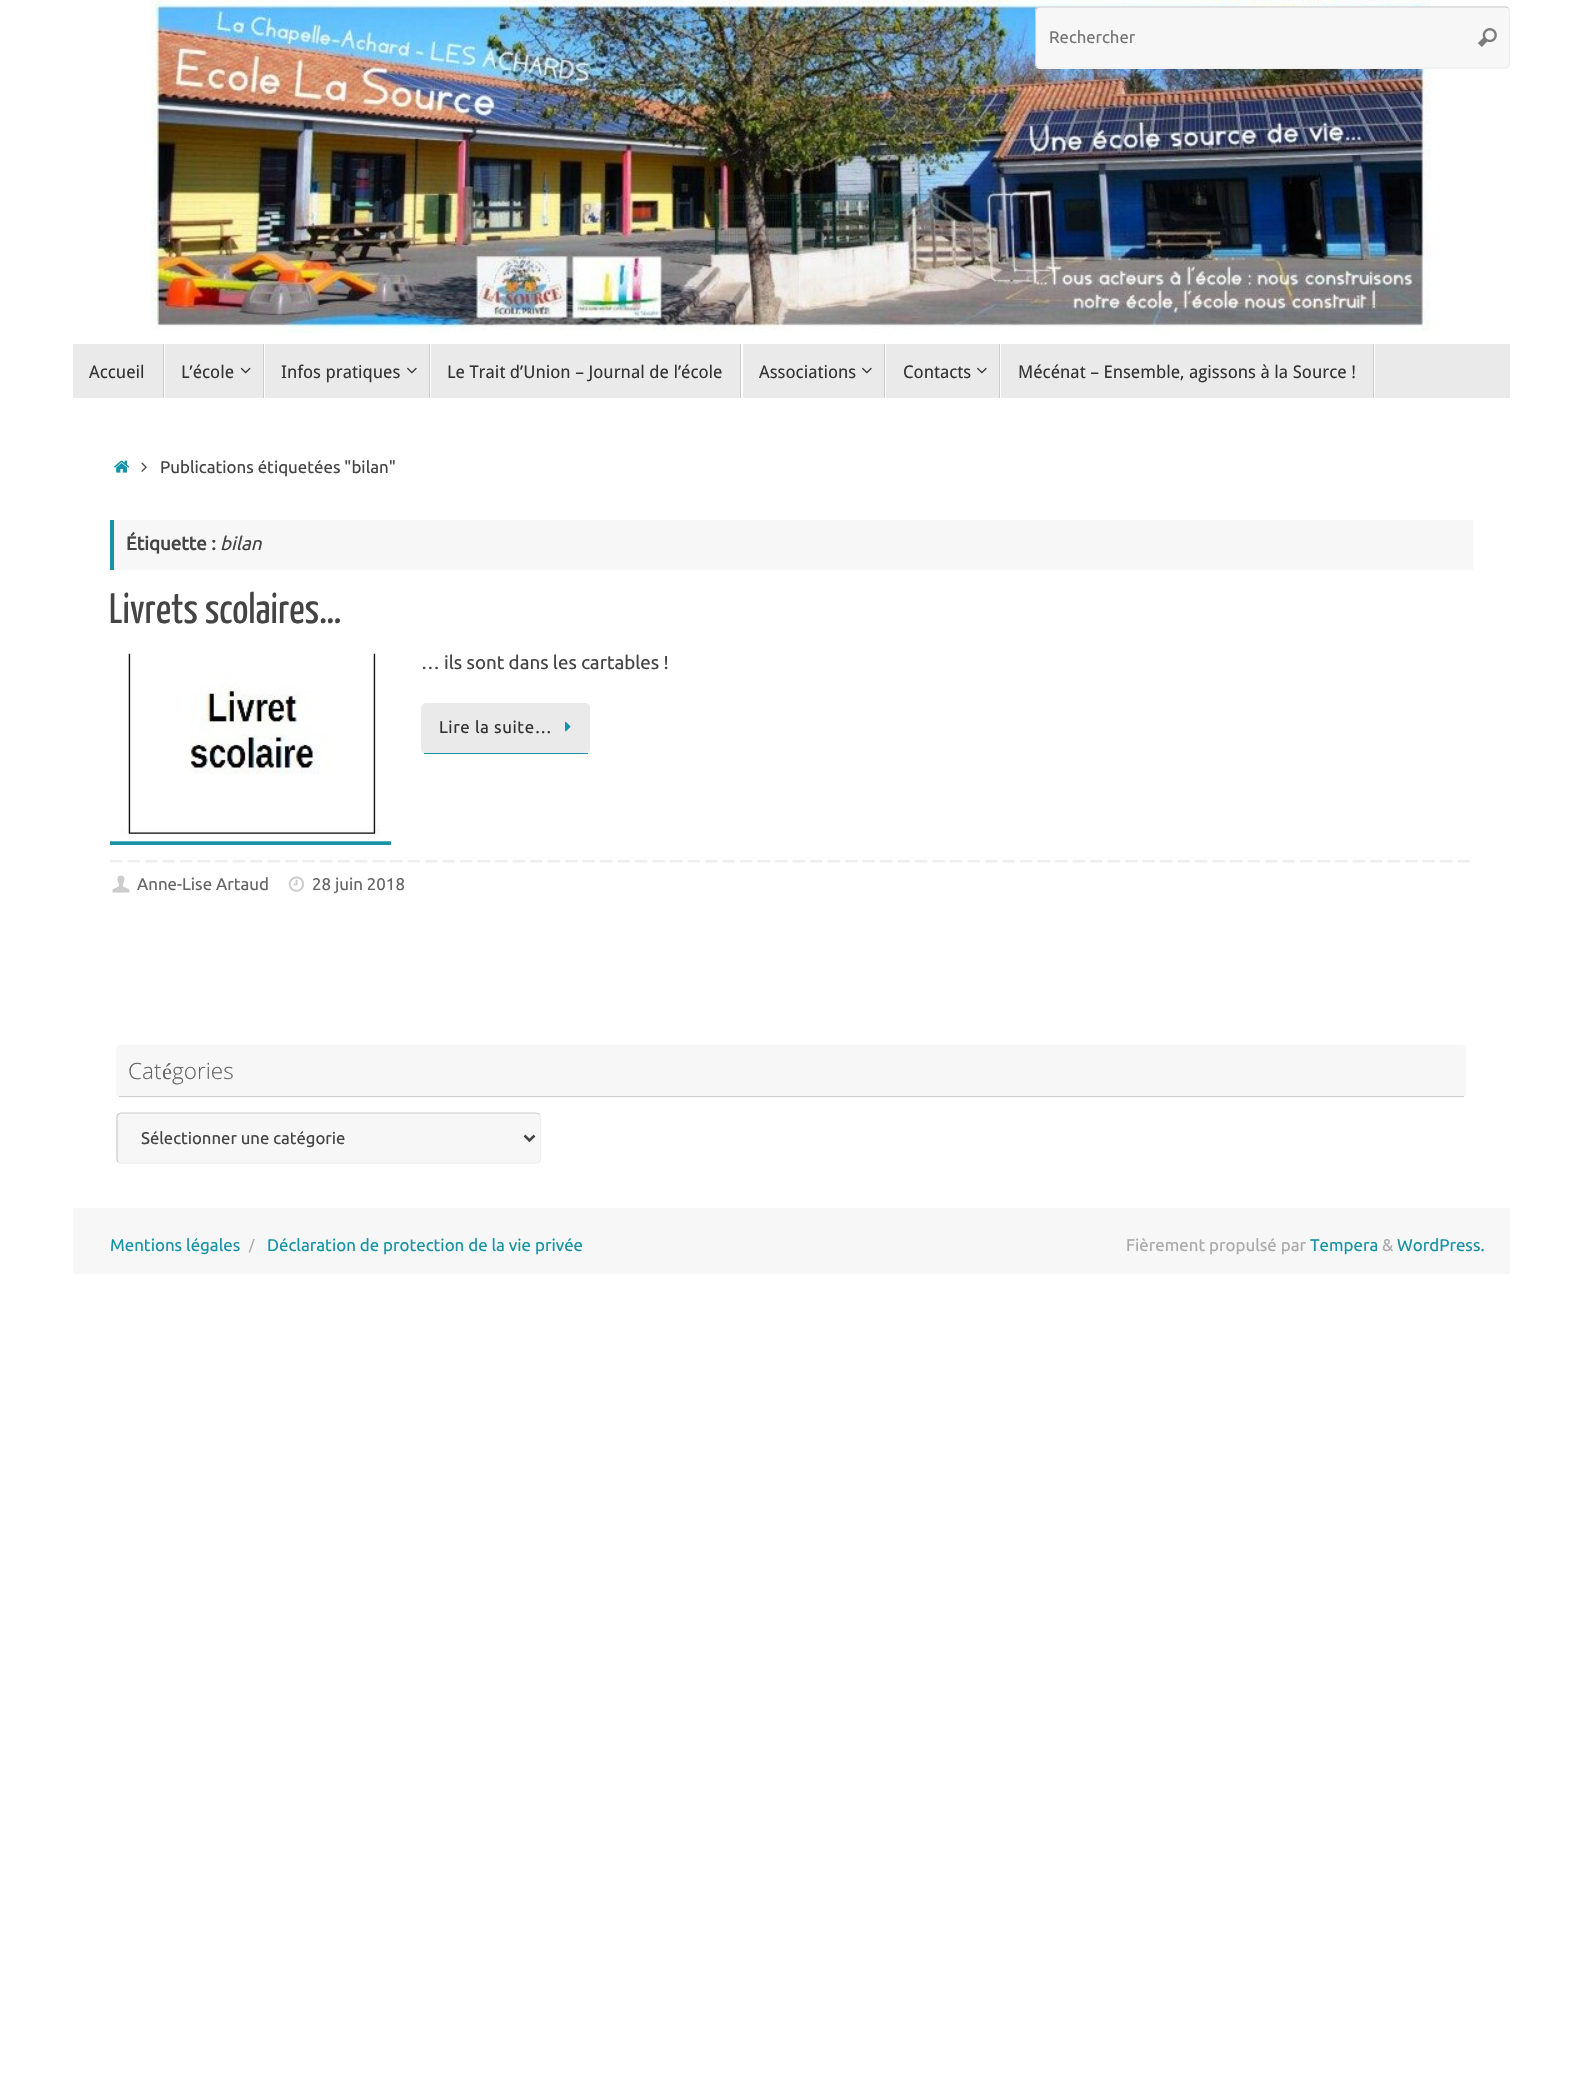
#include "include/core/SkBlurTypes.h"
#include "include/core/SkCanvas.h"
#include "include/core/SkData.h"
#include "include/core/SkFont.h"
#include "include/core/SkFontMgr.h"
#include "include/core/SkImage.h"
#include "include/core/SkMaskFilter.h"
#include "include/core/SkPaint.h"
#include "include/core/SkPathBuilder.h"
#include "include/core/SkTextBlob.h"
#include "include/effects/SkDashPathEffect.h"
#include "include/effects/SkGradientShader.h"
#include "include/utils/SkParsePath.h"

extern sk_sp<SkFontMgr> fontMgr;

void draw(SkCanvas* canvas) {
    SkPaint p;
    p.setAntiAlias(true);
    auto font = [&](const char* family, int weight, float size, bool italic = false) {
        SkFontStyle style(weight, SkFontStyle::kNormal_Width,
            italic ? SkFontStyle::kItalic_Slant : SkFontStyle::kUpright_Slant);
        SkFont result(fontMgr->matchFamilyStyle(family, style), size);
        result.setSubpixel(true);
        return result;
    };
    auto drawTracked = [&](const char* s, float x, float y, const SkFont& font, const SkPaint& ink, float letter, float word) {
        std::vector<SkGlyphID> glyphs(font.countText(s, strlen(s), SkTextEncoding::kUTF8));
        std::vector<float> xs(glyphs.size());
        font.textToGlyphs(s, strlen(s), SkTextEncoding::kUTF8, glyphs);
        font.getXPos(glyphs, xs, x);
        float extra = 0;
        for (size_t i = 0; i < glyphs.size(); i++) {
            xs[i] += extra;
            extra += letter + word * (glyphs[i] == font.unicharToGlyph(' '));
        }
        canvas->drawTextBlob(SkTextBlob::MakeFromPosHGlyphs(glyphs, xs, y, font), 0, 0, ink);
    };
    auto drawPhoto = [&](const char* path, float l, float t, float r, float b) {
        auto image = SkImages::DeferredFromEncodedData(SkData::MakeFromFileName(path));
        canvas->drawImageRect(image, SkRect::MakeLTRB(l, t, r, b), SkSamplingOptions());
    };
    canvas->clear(0xFFFFFFFF);
    drawPhoto("media/1.png", 151, 0, 1431, 333);
    p.setColor(0xFFF7F7F7);
    canvas->drawRoundRect(SkRect::MakeLTRB(1035, 6, 1510, 69), 5, 5, p);
    canvas->save();
    canvas->clipRect(SkRect::MakeLTRB(1035, 6, 1510, 69));
    p.setStyle(SkPaint::kStroke_Style);
    p.setStrokeWidth(1.2f);
    p.setColor(0xFFEEEEEE);
    canvas->drawPath(SkPathBuilder().moveTo(1508, 8).cubicTo(1511, 11, 1509.5f, 18, 1509.5f, 20).lineTo(1509.5f, 55).cubicTo(1509.5f, 58, 1511.5f, 68, 1505, 68).lineTo(1038.5f, 68).lineTo(1037, 67).detach(), p);
    p.setColor(0xFFCCCCCC);
    canvas->drawPath(SkPathBuilder().moveTo(1037, 67).cubicTo(1034, 64, 1035.5f, 57, 1035.5f, 55).lineTo(1035.5f, 20).cubicTo(1035.5f, 17, 1033.5f, 7, 1040, 7).lineTo(1506.5f, 7).lineTo(1508, 8).detach(), p);
    canvas->restore();
    auto font1 = font("Ubuntu", 400, 16.75f);
    p.setStyle(SkPaint::kFill_Style);
    p.setColor(0xFF757575);
    canvas->drawString("Rechercher", 1049, 43, font1, p);
    drawPhoto("media/2.png", 1478, 28, 1497, 47);
    p.setColor(0xFFEAEAEA);
    canvas->drawRect(SkRect::MakeLTRB(73, 344, 1510, 398), p);
    p.setColor(0xFFFFFFFF);
    canvas->drawPath(SkPathBuilder().moveTo(74, 398).lineTo(165, 398).lineTo(165, 344).lineTo(164, 344).lineTo(164, 398).close().detach(), p);
    p.setColor(0xFFCCCCCC);
    canvas->drawRect(SkRect::MakeLTRB(163, 344, 164, 398), p);
    auto font2 = font("Droid Sans", 400, 17.5f);
    p.setColor(0xFF333333);
    canvas->drawString("Accueil", 89, 378, font2, p);
    p.setColor(0xFFFFFFFF);
    canvas->drawPath(SkPathBuilder().moveTo(165, 398).lineTo(265, 398).lineTo(265, 344).lineTo(264, 344).lineTo(264, 398).close().detach(), p);
    p.setColor(0xFFCCCCCC);
    canvas->drawRect(SkRect::MakeLTRB(263, 344, 264, 398), p);
    p.setColor(0xFF333333);
    canvas->drawString("L’école", 181, 378, font2, p);
    drawPhoto("media/3.png", 240, 367, 251, 374);
    p.setColor(0xFFFFFFFF);
    canvas->drawPath(SkPathBuilder().moveTo(265, 398).lineTo(431, 398).lineTo(431, 344).lineTo(430, 344).lineTo(430, 398).close().detach(), p);
    p.setColor(0xFFCCCCCC);
    canvas->drawRect(SkRect::MakeLTRB(429, 344, 430, 398), p);
    p.setColor(0xFF333333);
    canvas->drawString("Infos pratiques", 281, 378, font2, p);
    drawPhoto("media/4.png", 407, 367, 417, 374);
    p.setColor(0xFFFFFFFF);
    canvas->drawPath(SkPathBuilder().moveTo(431, 398).lineTo(743, 398).lineTo(743, 344).lineTo(741, 344).lineTo(741, 398).close().detach(), p);
    p.setColor(0xFFCCCCCC);
    canvas->drawRect(SkRect::MakeLTRB(740, 344, 741, 398), p);
    p.setColor(0xFF333333);
    canvas->drawString("Le Trait d’Union – Journal de l’école", 447, 378, font2, p);
    p.setColor(0xFFFFFFFF);
    canvas->drawPath(SkPathBuilder().moveTo(743, 398).lineTo(886, 398).lineTo(886, 344).lineTo(885, 344).lineTo(885, 398).close().detach(), p);
    p.setColor(0xFFCCCCCC);
    canvas->drawRect(SkRect::MakeLTRB(884, 344, 885, 398), p);
    p.setColor(0xFF333333);
    canvas->drawString("Associations", 759, 378, font2, p);
    drawPhoto("media/4.png", 862, 367, 872, 374);
    p.setColor(0xFFFFFFFF);
    canvas->drawPath(SkPathBuilder().moveTo(886, 398).lineTo(1001, 398).lineTo(1001, 344).lineTo(1000, 344).lineTo(1000, 398).close().detach(), p);
    p.setColor(0xFFCCCCCC);
    canvas->drawRect(SkRect::MakeLTRB(999, 344, 1000, 398), p);
    p.setColor(0xFF333333);
    canvas->drawString("Contacts", 903, 378, font2, p);
    drawPhoto("media/4.png", 977, 367, 987, 374);
    p.setColor(0xFFFFFFFF);
    canvas->drawPath(SkPathBuilder().moveTo(1001, 398).lineTo(1375, 398).lineTo(1375, 344).lineTo(1374, 344).lineTo(1374, 398).close().detach(), p);
    p.setColor(0xFFCCCCCC);
    canvas->drawRect(SkRect::MakeLTRB(1373, 344, 1374, 398), p);
    p.setColor(0xFF333333);
    canvas->drawString("Mécénat – Ensemble, agissons à la Source !", 1018, 378, font2, p);
    drawPhoto("media/5.png", 114, 460, 130, 473);
    drawPhoto("media/6.png", 141, 462, 147, 472);
    auto font3 = font("Ubuntu", 400, 16.9f);
    p.setColor(0xFF444444);
    canvas->drawString("Publications étiquetées \"bilan\"", 160, 473, font3, p);
    p.setColor(0xFFF7F7F7);
    canvas->drawRect(SkRect::MakeLTRB(114, 520, 1473, 570), p);
    p.setColor(0xFF1693A5);
    canvas->drawRect(SkRect::MakeLTRB(110, 520, 114, 570), p);
    auto font4 = font("Ubuntu", 700, 18.75f);
    p.setColor(0xFF444444);
    canvas->drawString("Étiquette :", 126, 550, font4, p);
    auto font5 = font("Ubuntu", 400, 18.75f, true);
    canvas->drawString("bilan", 220, 550, font5, p);
    auto font6 = font("Yanone Kaffeesatz", 400, 42.5f);
    canvas->drawString("Livrets scolaires…", 109, 623, font6, p);
    p.setColor(0xFF1894A6);
    canvas->drawRect(SkRect::MakeLTRB(110, 841, 391, 845), p);
    drawPhoto("media/7.png", 110, 653, 391, 842);
    auto font7 = font("Ubuntu", 400, 18.75f);
    p.setColor(0xFF444444);
    canvas->drawString("… ils sont dans les cartables !", 421, 669, font7, p);
    p.setColor(0xFFEAEAEA);
    canvas->drawRoundRect(SkRect::MakeLTRB(421, 703, 590, 754), 5, 5, p);
    p.setColor(0xFF1693A5);
    canvas->drawRect(SkRect::MakeLTRB(424, 753, 588, 754), p);
    p.setColor(0xFF333333);
    drawTracked("Lire la suite…", 439, 733, font3, p, 0.6f, 0);
    drawPhoto("media/8.png", 565, 721, 571, 732);
    drawPhoto("media/9.png", 110, 860, 1470, 863);
    drawPhoto("media/10.png", 112, 875, 130, 893);
    p.setColor(0xFF666666);
    canvas->drawString("Anne-Lise Artaud", 137, 890, font3, p);
    drawPhoto("media/11.png", 288, 876, 304, 892);
    canvas->drawString("28 juin 2018", 312, 890, font3, p);
    p.setColor(0xFFF7F7F7);
    canvas->drawRoundRect(SkRect::MakeLTRB(116, 1045, 1466, 1098), 5, 5, p);
    p.setColor(0xFFCFCFCF);
    canvas->drawRect(SkRect::MakeLTRB(119, 1096, 1464, 1097), p);
    auto font8 = font("Open Sans", 300, 22.5f);
    p.setColor(0xFF666666);
    canvas->drawString("Cat", 128, 1079, font8, p);
    auto font9 = font("Liberation Serif", 400, 22.5f);
    canvas->drawString("é", 162, 1079, font9, p);
    canvas->drawString("gories", 172, 1079, font8, p);
    p.setColor(0xFFF7F7F7);
    canvas->drawRoundRect(SkRect::MakeLTRB(116, 1113, 541, 1164), 5, 5, p);
    p.setStyle(SkPaint::kStroke_Style);
    p.setColor(0xFFEEEEEE);
    canvas->drawPath(SkPathBuilder().moveTo(539.5f, 1114.5f).cubicTo(540, 1115, 540.5f, 1116.5f, 540.5f, 1117.5f).lineTo(540.5f, 1159).cubicTo(540.5f, 1160, 540, 1161, 539.5f, 1162).cubicTo(538.5f, 1162.5f, 537.5f, 1163, 536, 1163).lineTo(121, 1163).cubicTo(120, 1163, 119, 1162.5f, 118, 1162).detach(), p);
    p.setColor(0xFFCCCCCC);
    canvas->drawPath(SkPathBuilder().moveTo(118, 1162).cubicTo(117.5f, 1161, 117, 1160, 117, 1159).lineTo(117, 1117.5f).cubicTo(117, 1116.5f, 117.5f, 1115, 118, 1114.5f).cubicTo(119, 1113.5f, 120, 1113, 121, 1113).lineTo(536, 1113).cubicTo(537.5f, 1113, 538.5f, 1113.5f, 539.5f, 1114.5f).detach(), p);
    p.setStrokeWidth(2.5f);
    p.setColor(0xFF444444);
    canvas->drawPath(SkPathBuilder().moveTo(524.5f, 1135.5f).lineTo(529.5f, 1140.5f).lineTo(534.5f, 1135.5f).detach(), p);
    p.setStyle(SkPaint::kFill_Style);
    canvas->drawString("Sélectionner une catégorie", 141, 1144, font1, p);
    p.setColor(0xFFF7F7F7);
    canvas->drawRect(SkRect::MakeLTRB(73, 1208, 1510, 1274), p);
    p.setColor(0xFF1693A5);
    canvas->drawString("Mentions légales", 110, 1251, font3, p);
    auto font10 = font("Ubuntu", 400, 14);
    p.setColor(0xFFAAAAAA);
    canvas->drawString("/", 249, 1250, font10, p);
    p.setColor(0xFF1693A5);
    canvas->drawString("Déclaration de protection de la vie privée", 267, 1251, font3, p);
    p.setColor(0xFFAAAAAA);
    canvas->drawString("Fièrement propulsé par", 1126, 1251, font3, p);
    p.setColor(0xFF1693A5);
    canvas->drawString("Tempera", 1310, 1251, font3, p);
    p.setColor(0xFFAAAAAA);
    canvas->drawString("&", 1382, 1251, font3, p);
    p.setColor(0xFF1693A5);
    canvas->drawString("WordPress.", 1397, 1251, font3, p);
}
